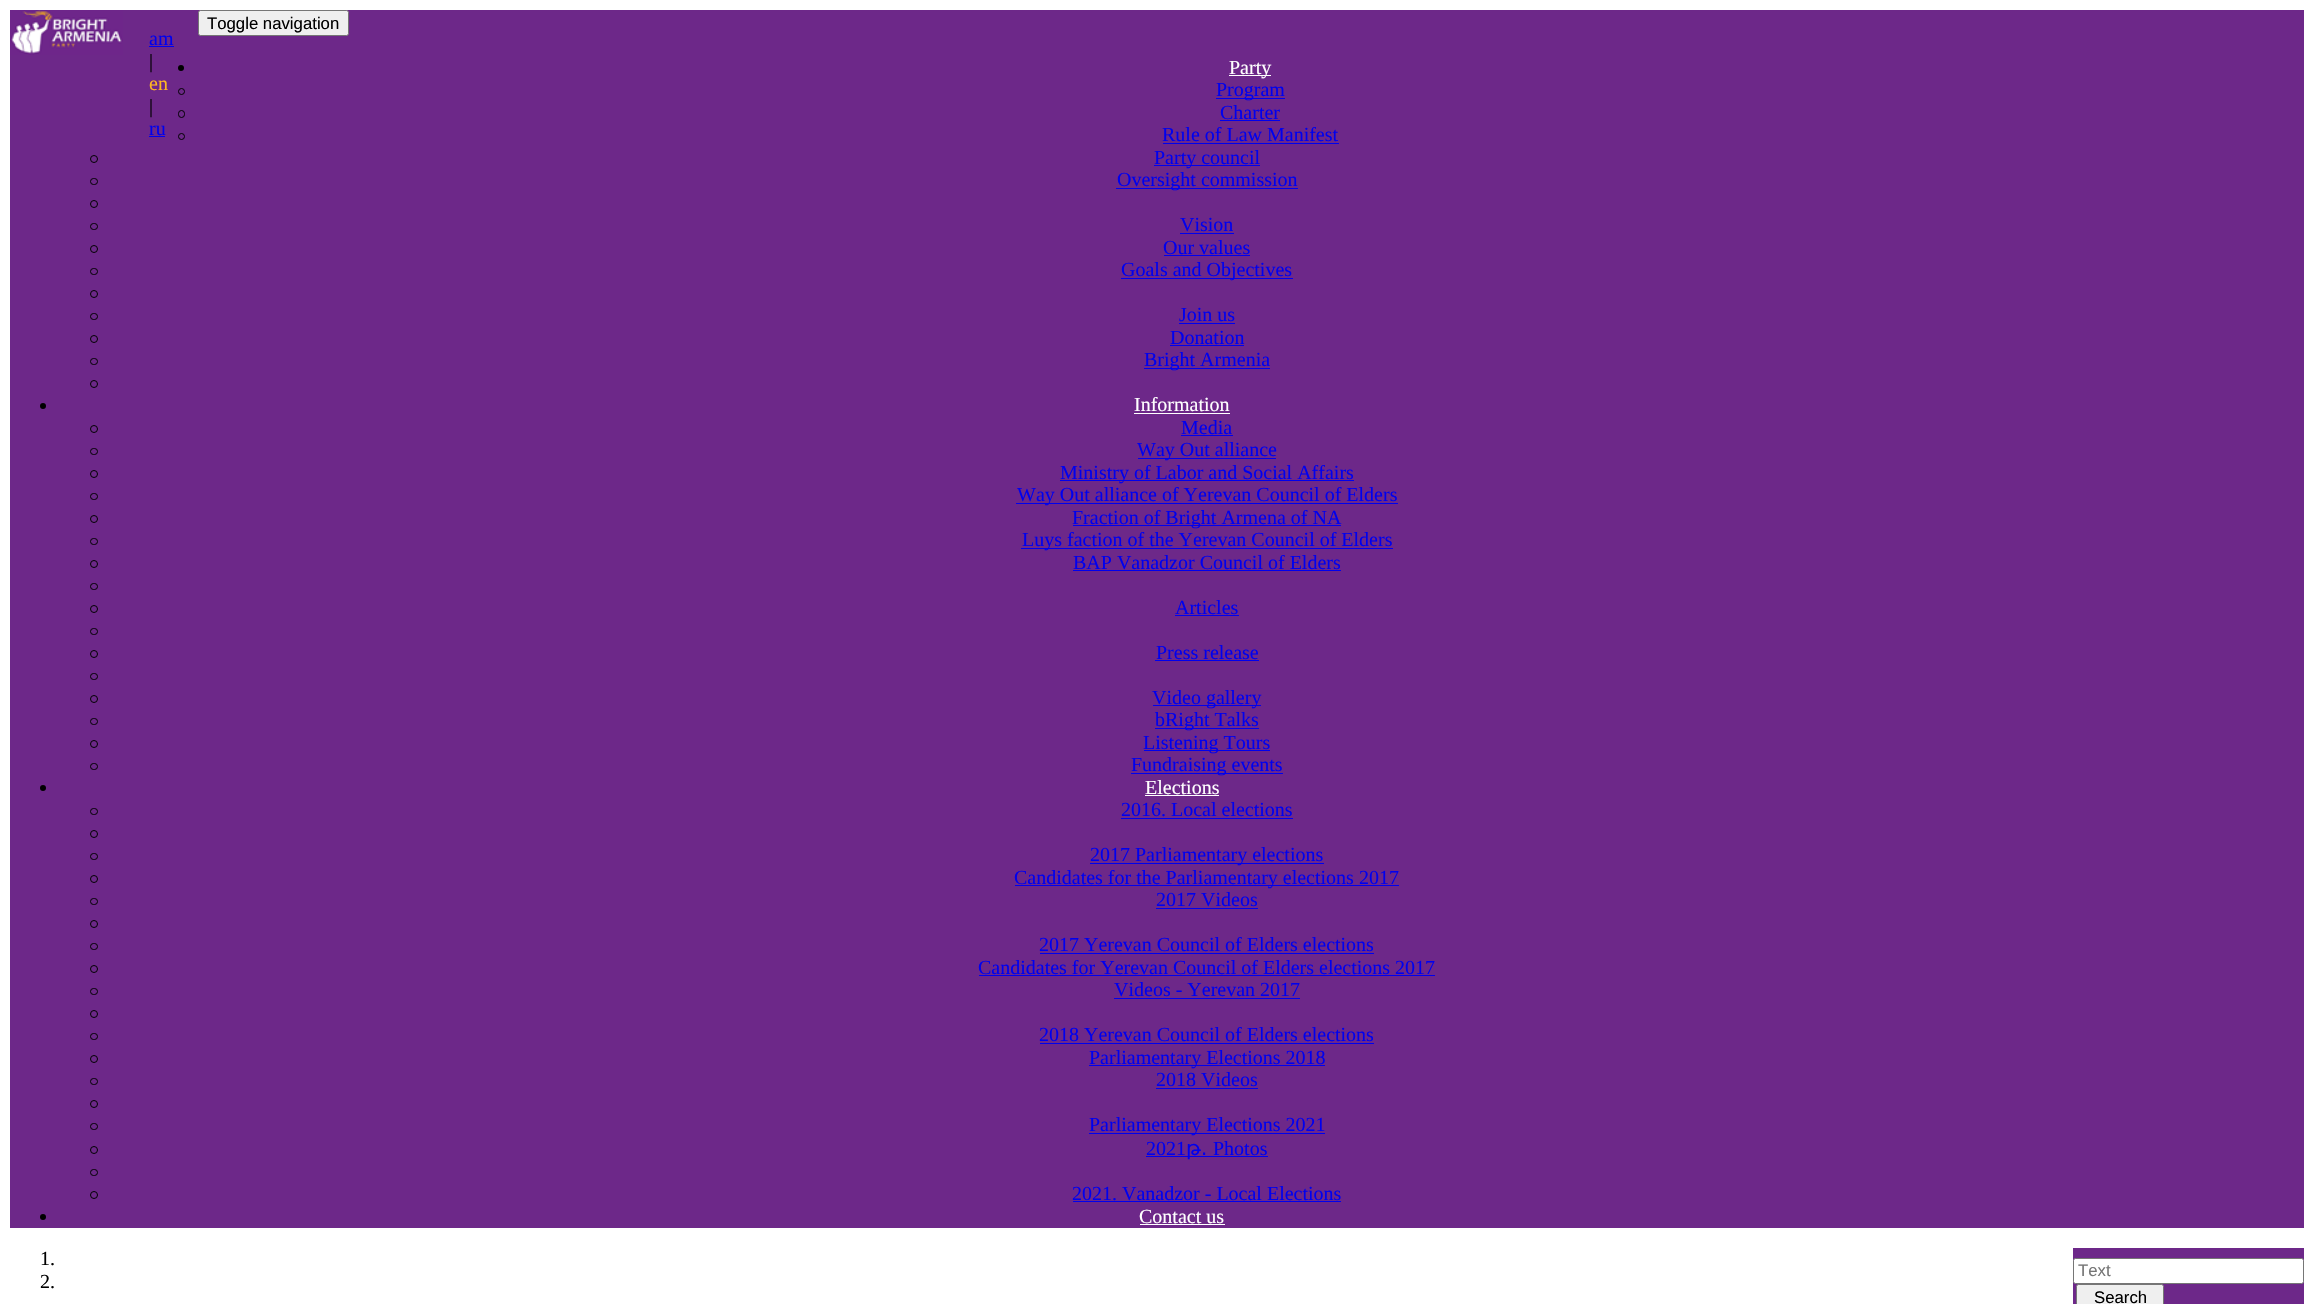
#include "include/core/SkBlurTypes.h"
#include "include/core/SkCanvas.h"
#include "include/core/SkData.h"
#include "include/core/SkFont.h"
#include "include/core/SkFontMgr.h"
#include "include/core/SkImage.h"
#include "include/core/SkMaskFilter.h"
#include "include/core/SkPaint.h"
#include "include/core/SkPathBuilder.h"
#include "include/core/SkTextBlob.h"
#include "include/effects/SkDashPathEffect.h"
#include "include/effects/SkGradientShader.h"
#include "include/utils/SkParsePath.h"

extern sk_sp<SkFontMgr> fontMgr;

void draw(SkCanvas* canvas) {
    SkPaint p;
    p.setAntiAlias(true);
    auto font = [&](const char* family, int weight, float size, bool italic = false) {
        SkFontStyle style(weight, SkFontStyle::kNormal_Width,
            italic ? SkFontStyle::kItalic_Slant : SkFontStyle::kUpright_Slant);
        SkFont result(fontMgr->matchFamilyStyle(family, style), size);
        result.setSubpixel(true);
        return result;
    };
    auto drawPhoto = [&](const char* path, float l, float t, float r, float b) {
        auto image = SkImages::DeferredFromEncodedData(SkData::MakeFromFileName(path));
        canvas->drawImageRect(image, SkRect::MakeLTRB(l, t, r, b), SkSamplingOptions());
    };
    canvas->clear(0xFFFFFFFF);
    auto font1 = font("Liberation Serif", 400, 20);
    p.setColor(0xFF000000);
    canvas->drawString("1.", 40, 1265, font1, p);
    canvas->drawString("2.", 40, 1288, font1, p);
    p.setColor(0xFF6D2889);
    canvas->drawRect(SkRect::MakeLTRB(10, 10, 2304, 1228), p);
    drawPhoto("media/1.png", 10, 10, 123, 55);
    p.setColor(0xFFEFEFEF);
    canvas->drawRoundRect(SkRect::MakeLTRB(198.5f, 10.5f, 348.5f, 35.5f), 2, 2, p);
    p.setStyle(SkPaint::kStroke_Style);
    p.setStrokeWidth(1);
    p.setColor(0xFF767676);
    canvas->drawRoundRect(SkRect::MakeLTRB(198.5f, 10.5f, 348.5f, 35.5f), 2, 2, p);
    auto font2 = font("Liberation Sans", 400, 16.75f);
    p.setStyle(SkPaint::kFill_Style);
    p.setColor(0xFF000000);
    canvas->drawString("Toggle navigation", 207, 29, font2, p);
    p.setColor(0xFF0000EE);
    canvas->drawString("am", 149, 45, font1, p);
    canvas->drawRect(SkRect::MakeLTRB(149, 46, 174, 47), p);
    p.setColor(0xFF000000);
    canvas->drawString("|", 149, 68, font1, p);
    p.setColor(0xFFFEB721);
    canvas->drawString("en", 149, 90, font1, p);
    p.setColor(0xFF000000);
    canvas->drawString("|", 149, 113, font1, p);
    p.setColor(0xFF0000EE);
    canvas->drawString("ru", 149, 135, font1, p);
    canvas->drawRect(SkRect::MakeLTRB(149, 136, 165, 137), p);
    p.setColor(0xFF000000);
    canvas->drawCircle(181, 68, 3, p);
    p.setColor(0xFFFFFFFF);
    canvas->drawRect(SkRect::MakeLTRB(1229, 75, 1271, 76), p);
    canvas->drawString("Party", 1229, 74, font1, p);
    p.setStyle(SkPaint::kStroke_Style);
    p.setColor(0xFF000000);
    canvas->drawCircle(181.5f, 91.5f, 3, p);
    p.setStyle(SkPaint::kFill_Style);
    p.setColor(0xFF0000EE);
    canvas->drawRect(SkRect::MakeLTRB(1216, 98, 1285, 99), p);
    canvas->drawString("Program", 1216, 96, font1, p);
    p.setStyle(SkPaint::kStroke_Style);
    p.setColor(0xFF000000);
    canvas->drawRoundRect(SkRect::MakeLTRB(178.5f, 110.5f, 184.5f, 117.5f), 3, 3, p);
    p.setStyle(SkPaint::kFill_Style);
    p.setColor(0xFF0000EE);
    canvas->drawString("Charter", 1220, 119, font1, p);
    canvas->drawRect(SkRect::MakeLTRB(1220, 120, 1280, 121), p);
    p.setStyle(SkPaint::kStroke_Style);
    p.setColor(0xFF000000);
    canvas->drawCircle(181.5f, 136.5f, 3, p);
    p.setStyle(SkPaint::kFill_Style);
    p.setColor(0xFF0000EE);
    canvas->drawString("Rule of Law Manifest", 1162, 141, font1, p);
    canvas->drawRect(SkRect::MakeLTRB(1163, 143, 1339, 144), p);
    p.setStyle(SkPaint::kStroke_Style);
    p.setColor(0xFF000000);
    canvas->drawCircle(94, 159, 3.5f, p);
    p.setStyle(SkPaint::kFill_Style);
    p.setColor(0xFF0000EE);
    canvas->drawRect(SkRect::MakeLTRB(1154, 165, 1260, 166), p);
    canvas->drawString("Party council", 1154, 164, font1, p);
    p.setStyle(SkPaint::kStroke_Style);
    p.setColor(0xFF000000);
    canvas->drawRoundRect(SkRect::MakeLTRB(90.5f, 178.5f, 97.5f, 184.5f), 3, 3, p);
    p.setStyle(SkPaint::kFill_Style);
    p.setColor(0xFF0000EE);
    canvas->drawRect(SkRect::MakeLTRB(1116, 188, 1298, 189), p);
    canvas->drawString("Oversight commission", 1117, 186, font1, p);
    p.setStyle(SkPaint::kStroke_Style);
    p.setColor(0xFF000000);
    canvas->drawCircle(94, 204, 3.5f, p);
    canvas->drawRoundRect(SkRect::MakeLTRB(90.5f, 223.5f, 97.5f, 229.5f), 3, 3, p);
    p.setStyle(SkPaint::kFill_Style);
    p.setColor(0xFF0000EE);
    canvas->drawString("Vision", 1180, 231, font1, p);
    canvas->drawRect(SkRect::MakeLTRB(1180, 233, 1234, 234), p);
    p.setStyle(SkPaint::kStroke_Style);
    p.setColor(0xFF000000);
    canvas->drawCircle(94, 249, 3.5f, p);
    p.setStyle(SkPaint::kFill_Style);
    p.setColor(0xFF0000EE);
    canvas->drawString("Our values", 1163, 254, font1, p);
    canvas->drawRect(SkRect::MakeLTRB(1164, 255, 1250, 256), p);
    p.setStyle(SkPaint::kStroke_Style);
    p.setColor(0xFF000000);
    canvas->drawRoundRect(SkRect::MakeLTRB(90.5f, 268.5f, 97.5f, 274.5f), 3, 3, p);
    p.setStyle(SkPaint::kFill_Style);
    p.setColor(0xFF0000EE);
    canvas->drawRect(SkRect::MakeLTRB(1121, 278, 1293, 279), p);
    canvas->drawString("Goals and Objectives", 1121, 276, font1, p);
    p.setStyle(SkPaint::kStroke_Style);
    p.setColor(0xFF000000);
    canvas->drawCircle(94, 294, 3.5f, p);
    canvas->drawRoundRect(SkRect::MakeLTRB(90.5f, 313.5f, 97.5f, 319.5f), 3, 3, p);
    p.setStyle(SkPaint::kFill_Style);
    p.setColor(0xFF0000EE);
    canvas->drawString("Join us", 1179, 321, font1, p);
    canvas->drawRect(SkRect::MakeLTRB(1179, 323, 1235, 324), p);
    p.setStyle(SkPaint::kStroke_Style);
    p.setColor(0xFF000000);
    canvas->drawCircle(94, 339, 3.5f, p);
    p.setStyle(SkPaint::kFill_Style);
    p.setColor(0xFF0000EE);
    canvas->drawString("Donation", 1170, 344, font1, p);
    canvas->drawRect(SkRect::MakeLTRB(1170, 345, 1244, 346), p);
    p.setStyle(SkPaint::kStroke_Style);
    p.setColor(0xFF000000);
    canvas->drawRoundRect(SkRect::MakeLTRB(90.5f, 358.5f, 97.5f, 364.5f), 3, 3, p);
    p.setStyle(SkPaint::kFill_Style);
    p.setColor(0xFF0000EE);
    canvas->drawRect(SkRect::MakeLTRB(1144, 368, 1270, 369), p);
    canvas->drawString("Bright Armenia", 1144, 366, font1, p);
    p.setStyle(SkPaint::kStroke_Style);
    p.setColor(0xFF000000);
    canvas->drawCircle(94, 384, 3.5f, p);
    p.setStyle(SkPaint::kFill_Style);
    canvas->drawCircle(43, 406, 3, p);
    p.setColor(0xFFFFFFFF);
    canvas->drawString("Information", 1134, 411, font1, p);
    canvas->drawRect(SkRect::MakeLTRB(1134, 413, 1230, 414), p);
    p.setStyle(SkPaint::kStroke_Style);
    p.setColor(0xFF000000);
    canvas->drawCircle(94, 429, 3.5f, p);
    p.setStyle(SkPaint::kFill_Style);
    p.setColor(0xFF0000EE);
    canvas->drawString("Media", 1181, 434, font1, p);
    canvas->drawRect(SkRect::MakeLTRB(1181, 435, 1233, 436), p);
    p.setStyle(SkPaint::kStroke_Style);
    p.setColor(0xFF000000);
    canvas->drawRoundRect(SkRect::MakeLTRB(90.5f, 448.5f, 97.5f, 454.5f), 3, 3, p);
    p.setStyle(SkPaint::kFill_Style);
    p.setColor(0xFF0000EE);
    canvas->drawRect(SkRect::MakeLTRB(1138, 458, 1276, 459), p);
    canvas->drawString("Way Out alliance", 1137, 456, font1, p);
    p.setStyle(SkPaint::kStroke_Style);
    p.setColor(0xFF000000);
    canvas->drawCircle(94, 474, 3.5f, p);
    p.setStyle(SkPaint::kFill_Style);
    p.setColor(0xFF0000EE);
    canvas->drawRect(SkRect::MakeLTRB(1060, 480, 1354, 481), p);
    canvas->drawString("Ministry of Labor and Social Affairs", 1060, 479, font1, p);
    p.setStyle(SkPaint::kStroke_Style);
    p.setColor(0xFF000000);
    canvas->drawRoundRect(SkRect::MakeLTRB(90.5f, 493.5f, 97.5f, 499.5f), 3, 3, p);
    p.setStyle(SkPaint::kFill_Style);
    p.setColor(0xFF0000EE);
    canvas->drawRect(SkRect::MakeLTRB(1016, 503, 1398, 504), p);
    canvas->drawString("Way Out alliance of Yerevan Council of Elders", 1017, 501, font1, p);
    p.setStyle(SkPaint::kStroke_Style);
    p.setColor(0xFF000000);
    canvas->drawCircle(94, 519, 3.5f, p);
    p.setStyle(SkPaint::kFill_Style);
    p.setColor(0xFF0000EE);
    canvas->drawRect(SkRect::MakeLTRB(1073, 525, 1341, 526), p);
    canvas->drawString("Fraction of Bright Armena of NA", 1072, 524, font1, p);
    p.setStyle(SkPaint::kStroke_Style);
    p.setColor(0xFF000000);
    canvas->drawRoundRect(SkRect::MakeLTRB(90.5f, 538.5f, 97.5f, 544.5f), 3, 3, p);
    p.setStyle(SkPaint::kFill_Style);
    p.setColor(0xFF0000EE);
    canvas->drawRect(SkRect::MakeLTRB(1021, 548, 1393, 549), p);
    canvas->drawString("Luys faction of the Yerevan Council of Elders", 1022, 546, font1, p);
    p.setStyle(SkPaint::kStroke_Style);
    p.setColor(0xFF000000);
    canvas->drawCircle(94, 564, 3.5f, p);
    p.setStyle(SkPaint::kFill_Style);
    p.setColor(0xFF0000EE);
    canvas->drawString("BAP Vanadzor Council of Elders", 1073, 569, font1, p);
    canvas->drawRect(SkRect::MakeLTRB(1073, 570, 1341, 571), p);
    p.setStyle(SkPaint::kStroke_Style);
    p.setColor(0xFF000000);
    canvas->drawRoundRect(SkRect::MakeLTRB(90.5f, 583.5f, 97.5f, 589.5f), 3, 3, p);
    canvas->drawCircle(94, 609, 3.5f, p);
    p.setStyle(SkPaint::kFill_Style);
    p.setColor(0xFF0000EE);
    canvas->drawString("Articles", 1175, 614, font1, p);
    canvas->drawRect(SkRect::MakeLTRB(1175, 615, 1239, 616), p);
    p.setStyle(SkPaint::kStroke_Style);
    p.setColor(0xFF000000);
    canvas->drawRoundRect(SkRect::MakeLTRB(90.5f, 628.5f, 97.5f, 634.5f), 3, 3, p);
    canvas->drawCircle(94, 654, 3.5f, p);
    p.setStyle(SkPaint::kFill_Style);
    p.setColor(0xFF0000EE);
    canvas->drawString("Press release", 1156, 659, font1, p);
    canvas->drawRect(SkRect::MakeLTRB(1155, 660, 1259, 661), p);
    p.setStyle(SkPaint::kStroke_Style);
    p.setColor(0xFF000000);
    canvas->drawRoundRect(SkRect::MakeLTRB(90.5f, 673.5f, 97.5f, 679.5f), 3, 3, p);
    canvas->drawCircle(94, 699, 3.5f, p);
    p.setStyle(SkPaint::kFill_Style);
    p.setColor(0xFF0000EE);
    canvas->drawRect(SkRect::MakeLTRB(1153, 705, 1261, 706), p);
    canvas->drawString("Video gallery", 1152, 704, font1, p);
    p.setStyle(SkPaint::kStroke_Style);
    p.setColor(0xFF000000);
    canvas->drawRoundRect(SkRect::MakeLTRB(90.5f, 718.5f, 97.5f, 724.5f), 3, 3, p);
    p.setStyle(SkPaint::kFill_Style);
    p.setColor(0xFF0000EE);
    canvas->drawRect(SkRect::MakeLTRB(1155, 728, 1259, 729), p);
    canvas->drawString("bRight Talks", 1155, 726, font1, p);
    p.setStyle(SkPaint::kStroke_Style);
    p.setColor(0xFF000000);
    canvas->drawCircle(94, 744, 3.5f, p);
    p.setStyle(SkPaint::kFill_Style);
    p.setColor(0xFF0000EE);
    canvas->drawRect(SkRect::MakeLTRB(1144, 750, 1270, 751), p);
    canvas->drawString("Listening Tours", 1143, 749, font1, p);
    p.setStyle(SkPaint::kStroke_Style);
    p.setColor(0xFF000000);
    canvas->drawRoundRect(SkRect::MakeLTRB(90.5f, 763.5f, 97.5f, 769.5f), 3, 3, p);
    p.setStyle(SkPaint::kFill_Style);
    p.setColor(0xFF0000EE);
    canvas->drawRect(SkRect::MakeLTRB(1131, 773, 1283, 774), p);
    canvas->drawString("Fundraising events", 1131, 771, font1, p);
    p.setColor(0xFF000000);
    canvas->drawCircle(43, 788, 3, p);
    p.setColor(0xFFFFFFFF);
    canvas->drawString("Elections", 1145, 794, font1, p);
    canvas->drawRect(SkRect::MakeLTRB(1145, 795, 1219, 796), p);
    p.setStyle(SkPaint::kStroke_Style);
    p.setColor(0xFF000000);
    canvas->drawRoundRect(SkRect::MakeLTRB(90.5f, 808.5f, 97.5f, 814.5f), 3, 3, p);
    p.setStyle(SkPaint::kFill_Style);
    p.setColor(0xFF0000EE);
    canvas->drawString("2016. Local elections", 1121, 816, font1, p);
    canvas->drawRect(SkRect::MakeLTRB(1121, 818, 1293, 819), p);
    p.setStyle(SkPaint::kStroke_Style);
    p.setColor(0xFF000000);
    canvas->drawCircle(94, 834, 3.5f, p);
    canvas->drawRoundRect(SkRect::MakeLTRB(90.5f, 853.5f, 97.5f, 859.5f), 3, 3, p);
    p.setStyle(SkPaint::kFill_Style);
    p.setColor(0xFF0000EE);
    canvas->drawRect(SkRect::MakeLTRB(1090, 863, 1324, 864), p);
    canvas->drawString("2017 Parliamentary elections", 1090, 861, font1, p);
    p.setStyle(SkPaint::kStroke_Style);
    p.setColor(0xFF000000);
    canvas->drawCircle(94, 879, 3.5f, p);
    p.setStyle(SkPaint::kFill_Style);
    p.setColor(0xFF0000EE);
    canvas->drawRect(SkRect::MakeLTRB(1015, 885, 1399, 886), p);
    canvas->drawString("Candidates for the Parliamentary elections 2017", 1014, 884, font1, p);
    p.setStyle(SkPaint::kStroke_Style);
    p.setColor(0xFF000000);
    canvas->drawRoundRect(SkRect::MakeLTRB(90.5f, 898.5f, 97.5f, 904.5f), 3, 3, p);
    p.setStyle(SkPaint::kFill_Style);
    p.setColor(0xFF0000EE);
    canvas->drawString("2017 Videos", 1156, 906, font1, p);
    canvas->drawRect(SkRect::MakeLTRB(1156, 908, 1258, 909), p);
    p.setStyle(SkPaint::kStroke_Style);
    p.setColor(0xFF000000);
    canvas->drawCircle(94, 924, 3.5f, p);
    canvas->drawRoundRect(SkRect::MakeLTRB(90.5f, 943.5f, 97.5f, 949.5f), 3, 3, p);
    p.setStyle(SkPaint::kFill_Style);
    p.setColor(0xFF0000EE);
    canvas->drawString("2017 Yerevan Council of Elders elections", 1039, 951, font1, p);
    canvas->drawRect(SkRect::MakeLTRB(1040, 953, 1374, 954), p);
    p.setStyle(SkPaint::kStroke_Style);
    p.setColor(0xFF000000);
    canvas->drawCircle(94, 969, 3.5f, p);
    p.setStyle(SkPaint::kFill_Style);
    p.setColor(0xFF0000EE);
    canvas->drawString("Candidates for Yerevan Council of Elders elections 2017", 978, 974, font1, p);
    canvas->drawRect(SkRect::MakeLTRB(979, 975, 1435, 976), p);
    p.setStyle(SkPaint::kStroke_Style);
    p.setColor(0xFF000000);
    canvas->drawRoundRect(SkRect::MakeLTRB(90.5f, 988.5f, 97.5f, 994.5f), 3, 3, p);
    p.setStyle(SkPaint::kFill_Style);
    p.setColor(0xFF0000EE);
    canvas->drawString("Videos - Yerevan 2017", 1114, 996, font1, p);
    canvas->drawRect(SkRect::MakeLTRB(1114, 998, 1300, 999), p);
    p.setStyle(SkPaint::kStroke_Style);
    p.setColor(0xFF000000);
    canvas->drawCircle(94, 1014, 3.5f, p);
    canvas->drawRoundRect(SkRect::MakeLTRB(90.5f, 1033.5f, 97.5f, 1039.5f), 3, 3, p);
    p.setStyle(SkPaint::kFill_Style);
    p.setColor(0xFF0000EE);
    canvas->drawString("2018 Yerevan Council of Elders elections", 1039, 1041, font1, p);
    canvas->drawRect(SkRect::MakeLTRB(1040, 1043, 1374, 1044), p);
    p.setStyle(SkPaint::kStroke_Style);
    p.setColor(0xFF000000);
    canvas->drawCircle(94, 1059, 3.5f, p);
    p.setStyle(SkPaint::kFill_Style);
    p.setColor(0xFF0000EE);
    canvas->drawRect(SkRect::MakeLTRB(1089, 1065, 1325, 1066), p);
    canvas->drawString("Parliamentary Elections 2018", 1089, 1064, font1, p);
    p.setStyle(SkPaint::kStroke_Style);
    p.setColor(0xFF000000);
    canvas->drawRoundRect(SkRect::MakeLTRB(90.5f, 1078.5f, 97.5f, 1084.5f), 3, 3, p);
    p.setStyle(SkPaint::kFill_Style);
    p.setColor(0xFF0000EE);
    canvas->drawString("2018 Videos", 1156, 1086, font1, p);
    canvas->drawRect(SkRect::MakeLTRB(1156, 1088, 1258, 1089), p);
    p.setStyle(SkPaint::kStroke_Style);
    p.setColor(0xFF000000);
    canvas->drawCircle(94, 1104, 3.5f, p);
    canvas->drawRoundRect(SkRect::MakeLTRB(90.5f, 1123.5f, 97.5f, 1129.5f), 3, 3, p);
    p.setStyle(SkPaint::kFill_Style);
    p.setColor(0xFF0000EE);
    canvas->drawRect(SkRect::MakeLTRB(1089, 1133, 1325, 1134), p);
    canvas->drawString("Parliamentary Elections 2021", 1089, 1131, font1, p);
    p.setStyle(SkPaint::kStroke_Style);
    p.setColor(0xFF000000);
    canvas->drawCircle(94, 1150, 3.5f, p);
    p.setStyle(SkPaint::kFill_Style);
    p.setColor(0xFF0000EE);
    canvas->drawString("2021", 1146, 1155, font1, p);
    canvas->drawRect(SkRect::MakeLTRB(1146, 1156, 1268, 1157), p);
    auto font3 = font("DejaVu Sans", 400, 20);
    canvas->drawString("թ․", 1186, 1155, font3, p);
    canvas->drawString("Photos", 1213, 1155, font1, p);
    p.setStyle(SkPaint::kStroke_Style);
    p.setColor(0xFF000000);
    canvas->drawRoundRect(SkRect::MakeLTRB(90.5f, 1169.5f, 97.5f, 1175.5f), 3, 3, p);
    canvas->drawCircle(94, 1195, 3.5f, p);
    p.setStyle(SkPaint::kFill_Style);
    p.setColor(0xFF0000EE);
    canvas->drawString("2021. Vanadzor - Local Elections", 1072, 1200, font1, p);
    canvas->drawRect(SkRect::MakeLTRB(1073, 1201, 1341, 1202), p);
    p.setColor(0xFF000000);
    canvas->drawCircle(43, 1217, 3, p);
    p.setColor(0xFFFFFFFF);
    canvas->drawString("Contact us", 1139, 1223, font1, p);
    canvas->drawRect(SkRect::MakeLTRB(1140, 1224, 1225, 1225), p);
    p.setColor(0xFF6D2889);
    canvas->drawRect(SkRect::MakeLTRB(2073, 1248, 2304, 1304), p);
    p.setColor(0xFFFFFFFF);
    canvas->drawRoundRect(SkRect::MakeLTRB(2073.5f, 1258.5f, 2303.5f, 1283.5f), 2, 2, p);
    p.setStyle(SkPaint::kStroke_Style);
    p.setColor(0xFF767676);
    canvas->drawRoundRect(SkRect::MakeLTRB(2073.5f, 1258.5f, 2303.5f, 1283.5f), 2, 2, p);
    p.setStyle(SkPaint::kFill_Style);
    p.setColor(0xFF757575);
    canvas->drawString("Text", 2078, 1276, font2, p);
    p.setColor(0xFFEFEFEF);
    canvas->drawRoundRect(SkRect::MakeLTRB(2076.5f, 1284.5f, 2163.5f, 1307.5f), 2, 2, p);
    p.setStyle(SkPaint::kStroke_Style);
    p.setColor(0xFF767676);
    canvas->drawRoundRect(SkRect::MakeLTRB(2076.5f, 1284.5f, 2163.5f, 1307.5f), 2, 2, p);
    p.setStyle(SkPaint::kFill_Style);
    p.setColor(0xFF000000);
    canvas->drawString("Search", 2094, 1303, font2, p);
}
